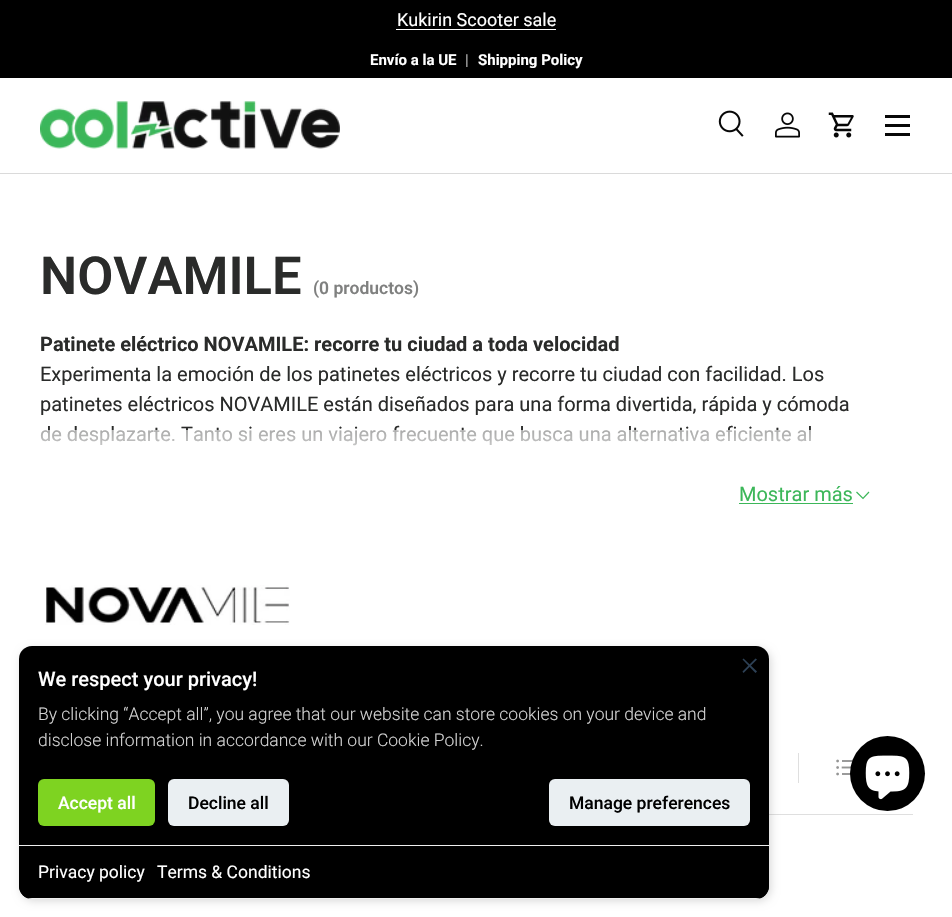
#include "include/core/SkBlurTypes.h"
#include "include/core/SkCanvas.h"
#include "include/core/SkData.h"
#include "include/core/SkFont.h"
#include "include/core/SkFontMgr.h"
#include "include/core/SkImage.h"
#include "include/core/SkMaskFilter.h"
#include "include/core/SkPaint.h"
#include "include/core/SkPathBuilder.h"
#include "include/core/SkTextBlob.h"
#include "include/effects/SkDashPathEffect.h"
#include "include/effects/SkGradientShader.h"
#include "include/utils/SkParsePath.h"

extern sk_sp<SkFontMgr> fontMgr;

void draw(SkCanvas* canvas) {
    SkPaint p;
    p.setAntiAlias(true);
    auto font = [&](const char* family, int weight, float size, bool italic = false) {
        SkFontStyle style(weight, SkFontStyle::kNormal_Width,
            italic ? SkFontStyle::kItalic_Slant : SkFontStyle::kUpright_Slant);
        SkFont result(fontMgr->matchFamilyStyle(family, style), size);
        result.setSubpixel(true);
        return result;
    };
    auto drawPhoto = [&](const char* path, float l, float t, float r, float b) {
        auto image = SkImages::DeferredFromEncodedData(SkData::MakeFromFileName(path));
        canvas->drawImageRect(image, SkRect::MakeLTRB(l, t, r, b), SkSamplingOptions());
    };
    canvas->clear(0xFFFFFFFF);
    p.setColor(0xFF000000);
    canvas->drawRect(SkRect::MakeLTRB(0, 0, 952, 78), p);
    auto font1 = font("Roboto", 400, 18);
    p.setColor(0xFFFFFFFF);
    canvas->drawString("Kukirin Scooter sale", 397, 26, font1, p);
    canvas->drawRect(SkRect::MakeLTRB(396, 29, 556, 30), p);
    auto font2 = font("Roboto", 700, 15);
    canvas->drawString("Envío a la UE", 370, 65, font2, p);
    auto font3 = font("Roboto", 400, 15);
    p.setColor(0xFFB3B3B3);
    canvas->drawString("|", 465, 65, font3, p);
    p.setColor(0xFFFFFFFF);
    canvas->drawString("Shipping Policy", 478, 65, font2, p);
    p.setColor(0xFFDADADA);
    canvas->drawRect(SkRect::MakeLTRB(0, 173, 952, 174), p);
    drawPhoto("media/1.png", 40, 101, 340, 149);
    drawPhoto("media/2.png", 718, 110, 744, 137);
    drawPhoto("media/3.png", 775, 112, 800, 138);
    drawPhoto("media/4.png", 828, 112, 854, 138);
    {
        const struct { float l, t, r, b; SkColor color; } items[] = {
            {885, 115, 910, 118, 0xFF070707},
            {885, 133, 910, 136, 0xFF070707},
            {885, 124, 910, 127, 0xFF070707},
        };
        for (auto [l, t, r, b, color] : items) {
            p.setColor(color);
            canvas->drawRect(SkRect::MakeLTRB(l, t, r, b), p);
        }
    }
    auto font4 = font("Roboto", 600, 52.5f);
    p.setColor(0xFF2A2B2A);
    canvas->drawString("NOVAMILE", 40, 294, font4, p);
    auto font5 = font("Roboto", 600, 17.5f);
    p.setColor(0xFF7F807F);
    canvas->drawString("(0 productos)", 313, 294, font5, p);
    auto font6 = font("Roboto", 700, 20);
    p.setColor(0xFF2A2B2A);
    canvas->drawString("Patinete eléctrico NOVAMILE: recorre tu ciudad a toda velocidad", 40, 351, font6, p);
    auto font7 = font("Roboto", 400, 20);
    {
        const struct { const char* s; float x, y; } items[] = {
            {"Experimenta la emoción de los patinetes eléctricos y recorre tu ciudad con facilidad. Los", 40, 381},
            {"patinetes eléctricos NOVAMILE están diseñados para una forma divertida, rápida y cómoda", 40, 411},
            {"de desplazarte. Tanto si eres un viajero frecuente que busca una alternativa eficiente al", 40, 441},
        };
        for (auto [s, x, y] : items) {
            canvas->drawString(s, x, y, font7, p);
        }
    }
    {
        const SkColor colors[] = {0x99FFFFFF, 0xFFFFFFFF};
        const float stops[] = {0, 1};
        const SkPoint ends[] = {{456, 430}, {456, 480}};
        p.setShader(SkGradientShader::MakeLinear(ends, colors, stops, 2, SkTileMode::kClamp));
        p.setAlpha(255);
    }
    canvas->drawRect(SkRect::MakeLTRB(40, 430, 811, 446), p);
    p.setShader(nullptr);
    p.setColor(0xFF3CB759);
    canvas->drawString("Mostrar más", 739, 501, font7, p);
    canvas->drawRect(SkRect::MakeLTRB(739, 503, 853, 504), p);
    p.setStyle(SkPaint::kStroke_Style);
    p.setStrokeWidth(1.2f);
    canvas->drawPath(SkPathBuilder().moveTo(869, 492).lineTo(863, 498.5f).lineTo(856.5f, 492).detach(), p);
    drawPhoto("media/5.png", 45, 585, 290, 625);
    p.setStyle(SkPaint::kFill_Style);
    p.setColor(0xFFDFDFDF);
    canvas->drawRect(SkRect::MakeLTRB(769, 814, 913, 815), p);
    canvas->drawRect(SkRect::MakeLTRB(798, 753, 799, 783), p);
    drawPhoto("media/6.png", 836, 759, 853, 776);
    p.setColor(0x26000000);
    p.setMaskFilter(SkMaskFilter::MakeBlur(kNormal_SkBlurStyle, 4));
    canvas->drawRoundRect(SkRect::MakeLTRB(21, 649, 771, 901), 13, 13, p);
    p.setMaskFilter(nullptr);
    p.setColor(0xFF000000);
    canvas->drawRoundRect(SkRect::MakeLTRB(19, 646, 769, 899), 13, 13, p);
    p.setColor(0xFF2D4156);
    canvas->drawPath(SkPathBuilder().moveTo(755.5f, 658.5f).lineTo(757, 659.5f).lineTo(743.5f, 673).lineTo(742.5f, 671.5f).close().detach(), p);
    canvas->drawPath(SkPathBuilder().moveTo(742.5f, 659.5f).lineTo(743.5f, 658.5f).lineTo(757, 671.5f).lineTo(755.5f, 673).close().detach(), p);
    auto font8 = font("Roboto", 500, 20);
    p.setColor(0xFFFFFFFF);
    canvas->drawString("We respect your privacy!", 38, 686, font8, p);
    auto font9 = font("Roboto", 300, 17.5f);
    p.setColor(0xFFD3D3D3);
    canvas->drawString("By clicking “Accept all”, you agree that our website can store cookies on your device and", 38, 720, font9, p);
    canvas->drawString("disclose information in accordance with our Cookie Policy.", 38, 746, font9, p);
    p.setColor(0xFF7ED321);
    canvas->drawRoundRect(SkRect::MakeLTRB(38, 779, 155, 826), 6, 6, p);
    auto font10 = font("Roboto", 500, 17.5f);
    p.setColor(0xFFFFFFFF);
    canvas->drawString("Accept all", 58, 809, font10, p);
    p.setColor(0xFFEAEFF2);
    canvas->drawRoundRect(SkRect::MakeLTRB(168, 779, 289, 826), 6, 6, p);
    p.setColor(0xFF000000);
    canvas->drawString("Decline all", 188, 809, font10, p);
    p.setColor(0xFFEAEFF2);
    canvas->drawRoundRect(SkRect::MakeLTRB(549, 779, 750, 826), 6, 6, p);
    p.setColor(0xFF000000);
    canvas->drawString("Manage preferences", 569, 809, font10, p);
    canvas->drawPath(SkPathBuilder().moveTo(19, 845).lineTo(769, 845).lineTo(769, 886).cubicTo(769, 893, 763, 899, 756, 899).lineTo(32, 899).cubicTo(25, 899, 19, 893, 19, 886).close().detach(), p);
    p.setColor(0xFFEEEEEE);
    canvas->drawRect(SkRect::MakeLTRB(19, 845, 769, 846), p);
    canvas->save();
    canvas->clipPath(SkPathBuilder().moveTo(32, 646).lineTo(756, 646).cubicTo(763, 646, 769, 652, 769, 659).lineTo(769, 886).cubicTo(769, 893, 763, 899, 756, 899).lineTo(32, 899).cubicTo(25, 899, 19, 893, 19, 886).lineTo(19, 659).cubicTo(19, 652, 25, 646, 32, 646).close().detach(), true);
    canvas->drawRect(SkRect::MakeLTRB(19, 898, 769, 899), p);
    canvas->restore();
    auto font11 = font("Roboto", 400, 17.5f);
    p.setColor(0xFFFFFFFF);
    canvas->drawString("Privacy policy", 38, 878, font11, p);
    canvas->drawString("Terms & Conditions", 157, 878, font11, p);
    p.setColor(0xFF000000);
    canvas->drawCircle(887.5f, 773.5f, 37.5f, p);
    drawPhoto("media/7.png", 865, 755, 910, 800);
}
